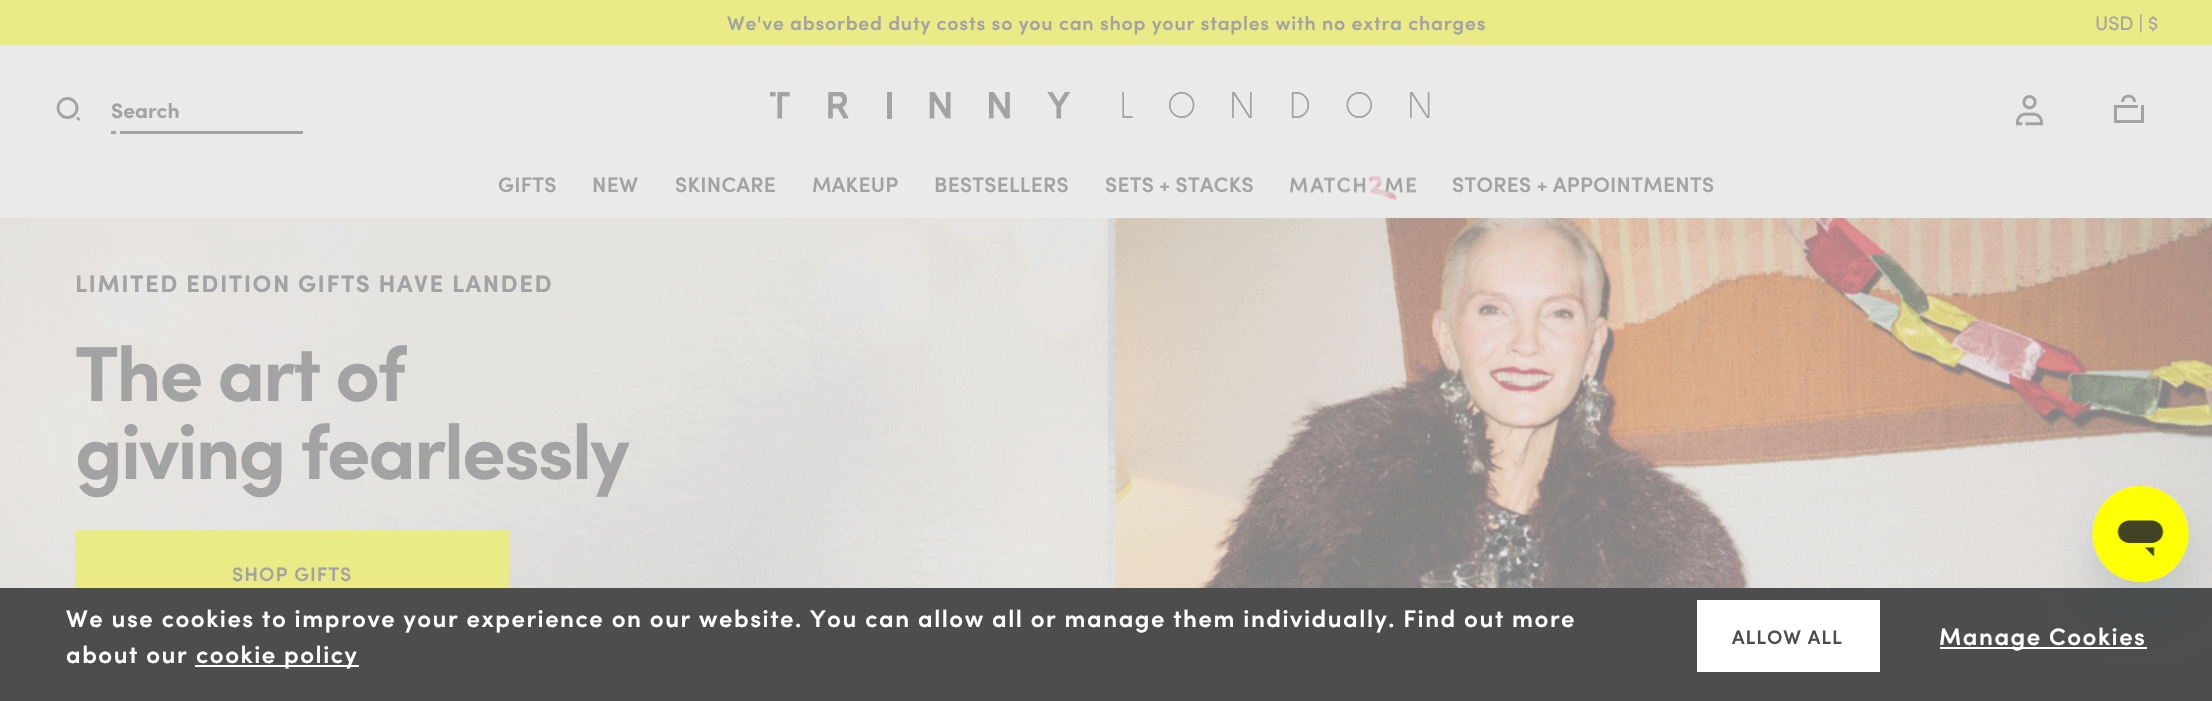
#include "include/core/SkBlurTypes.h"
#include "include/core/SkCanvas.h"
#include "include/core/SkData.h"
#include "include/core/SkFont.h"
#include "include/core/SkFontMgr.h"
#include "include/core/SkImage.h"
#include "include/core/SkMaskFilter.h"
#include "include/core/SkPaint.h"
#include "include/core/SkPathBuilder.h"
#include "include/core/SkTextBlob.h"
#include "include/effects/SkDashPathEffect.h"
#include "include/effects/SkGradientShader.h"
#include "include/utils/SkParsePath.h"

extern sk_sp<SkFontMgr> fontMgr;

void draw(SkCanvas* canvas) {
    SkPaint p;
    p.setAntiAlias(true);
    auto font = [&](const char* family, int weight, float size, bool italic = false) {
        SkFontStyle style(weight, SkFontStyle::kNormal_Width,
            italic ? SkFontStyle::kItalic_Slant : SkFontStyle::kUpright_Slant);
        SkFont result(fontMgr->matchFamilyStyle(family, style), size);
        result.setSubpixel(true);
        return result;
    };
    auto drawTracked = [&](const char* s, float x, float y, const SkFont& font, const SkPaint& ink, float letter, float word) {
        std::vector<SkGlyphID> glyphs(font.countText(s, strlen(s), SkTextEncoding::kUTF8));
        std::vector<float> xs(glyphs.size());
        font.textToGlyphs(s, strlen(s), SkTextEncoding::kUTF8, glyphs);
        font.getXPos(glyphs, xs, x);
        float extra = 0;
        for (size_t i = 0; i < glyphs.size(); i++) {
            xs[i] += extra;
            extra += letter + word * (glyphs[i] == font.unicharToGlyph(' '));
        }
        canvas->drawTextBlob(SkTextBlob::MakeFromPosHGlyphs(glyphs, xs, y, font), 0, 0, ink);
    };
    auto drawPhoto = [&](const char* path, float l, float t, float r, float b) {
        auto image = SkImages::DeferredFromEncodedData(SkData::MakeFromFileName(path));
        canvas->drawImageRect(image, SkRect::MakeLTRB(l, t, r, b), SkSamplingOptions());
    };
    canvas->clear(0xFFEAEAEA);
    p.setColor(0xFFEAEA86);
    canvas->drawRect(SkRect::MakeLTRB(0, 0, 2212, 45), p);
    auto font1 = font("Sofia", 600, 19.5f);
    p.setColor(0xFFA3A3A3);
    drawTracked("We've absorbed duty costs so you can shop your staples with no extra charges", 727, 30, font1, p, 0.75f, 0);
    auto font2 = font("Sofia", 400, 19.5f);
    canvas->drawString("USD | $", 2095, 30, font2, p);
    p.setStyle(SkPaint::kStroke_Style);
    p.setStrokeWidth(2.8f);
    canvas->drawCircle(67.5f, 108, 9.5f, p);
    p.setStyle(SkPaint::kFill_Style);
    canvas->drawPath(SkPathBuilder().moveTo(76, 118.5f).lineTo(78, 116.5f).lineTo(80.5f, 119.5f).lineTo(79, 121).close().detach(), p);
    auto font3 = font("Sofia", 700, 21);
    canvas->drawString("Search", 111, 118, font3, p);
    canvas->drawRect(SkRect::MakeLTRB(111, 131, 116, 134), p);
    canvas->drawRect(SkRect::MakeLTRB(120, 131, 303, 134), p);
    drawPhoto("media/1.png", 770, 92, 1430, 119);
    drawPhoto("media/2.png", 2016, 95, 2043, 126);
    p.setStyle(SkPaint::kStroke_Style);
    p.setStrokeWidth(3);
    canvas->drawRect(SkRect::MakeLTRB(2115.5f, 106.5f, 2142.5f, 121.5f), p);
    canvas->drawPath(SkPathBuilder().moveTo(2134.5f, 102).cubicTo(2134.5f, 94, 2122.5f, 94, 2122.5f, 102).detach(), p);
    p.setStyle(SkPaint::kFill_Style);
    p.setColor(0xFFEAEAEA);
    canvas->drawRect(SkRect::MakeLTRB(2138, 105, 2141, 108), p);
    auto font4 = font("Sofia", 600, 21);
    p.setColor(0xFFA3A3A3);
    {
        const struct { const char* s; float x, y; } items[] = {
            {"GIFTS", 498, 192},
            {"NEW", 592, 192},
            {"SKINCARE", 675, 192},
            {"MAKEUP", 812, 192},
            {"BESTSELLERS", 934, 192},
            {"SETS + STACKS", 1105, 192},
        };
        for (auto [s, x, y] : items) {
            drawTracked(s, x, y, font4, p, 0.3f, 0);
        }
    }
    drawPhoto("media/3.png", 1290, 175, 1416, 201);
    drawTracked("STORES + APPOINTMENTS", 1452, 192, font4, p, 0.3f, 0);
    drawPhoto("media/4.png", 0, 218, 2212, 588);
    auto font5 = font("Sofia", 700, 24);
    drawTracked("LIMITED EDITION GIFTS HAVE LANDED", 75, 292, font5, p, 1.5f, 0);
    auto font6 = font("Sofia", 700, 78);
    drawTracked("The art of", 75, 401, font6, p, -2.25f, 0);
    drawTracked("giving fearlessly", 75, 479, font6, p, -2.25f, 0);
    p.setColor(0xFFEAEA86);
    canvas->drawRect(SkRect::MakeLTRB(75, 530, 510, 588), p);
    p.setColor(0xFFA3A3A3);
    drawTracked("SHOP GIFTS", 232, 581, font1, p, 1, 0);
    p.setColor(0xFF4D4D4D);
    canvas->drawRect(SkRect::MakeLTRB(0, 588, 2212, 701), p);
    auto font7 = font("Sofia", 600, 24);
    p.setColor(0xFFFFFFFF);
    drawTracked("We use cookies to improve your experience on our website. You can allow all or manage them individually. Find out more", 66, 627, font7, p, 1.5f, 0);
    drawTracked("about our", 66, 663, font7, p, 1.5f, 0);
    canvas->drawRect(SkRect::MakeLTRB(195, 665, 359, 667), p);
    drawTracked("cookie policy", 196, 663, font7, p, 1.5f, 0);
    canvas->drawRect(SkRect::MakeLTRB(1697, 600, 1880, 672), p);
    p.setColor(0xFF4D4D4D);
    drawTracked("ALLOW ALL", 1732, 644, font1, p, 1, 0);
    p.setColor(0xFFFFFFFF);
    canvas->drawRect(SkRect::MakeLTRB(1940, 647, 2147, 649), p);
    drawTracked("Manage Cookies", 1939, 645, font7, p, 1.5f, 0);
    p.setColor(0x2617494D);
    p.setMaskFilter(SkMaskFilter::MakeBlur(kNormal_SkBlurStyle, 22.5f));
    canvas->drawRoundRect(SkRect::MakeLTRB(2093, 516, 2189, 612), 48, 48, p);
    p.setMaskFilter(nullptr);
    drawPhoto("media/5.png", 2092, 486, 2189, 582);
}
